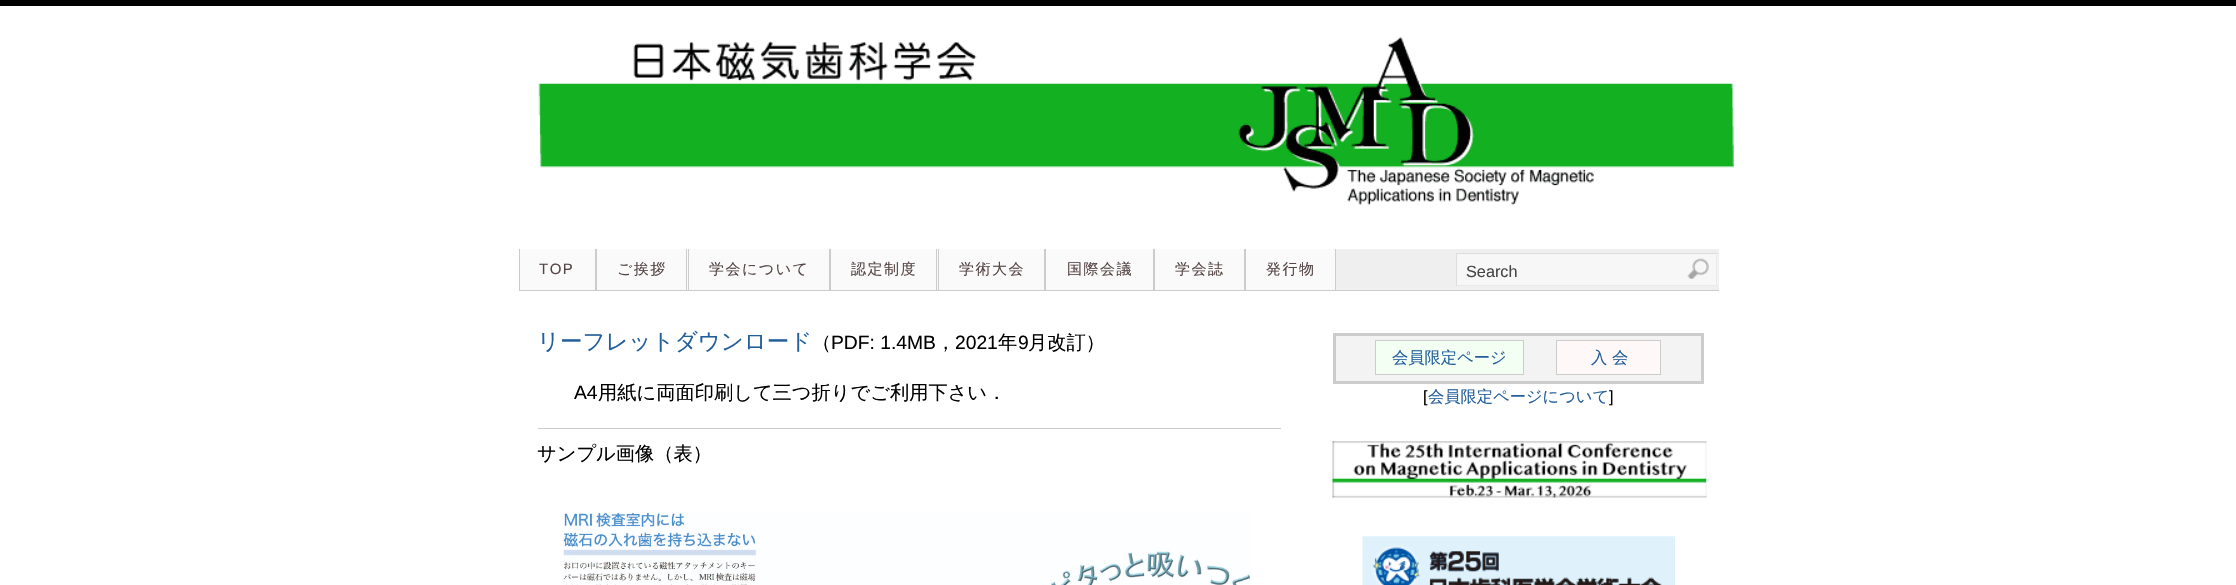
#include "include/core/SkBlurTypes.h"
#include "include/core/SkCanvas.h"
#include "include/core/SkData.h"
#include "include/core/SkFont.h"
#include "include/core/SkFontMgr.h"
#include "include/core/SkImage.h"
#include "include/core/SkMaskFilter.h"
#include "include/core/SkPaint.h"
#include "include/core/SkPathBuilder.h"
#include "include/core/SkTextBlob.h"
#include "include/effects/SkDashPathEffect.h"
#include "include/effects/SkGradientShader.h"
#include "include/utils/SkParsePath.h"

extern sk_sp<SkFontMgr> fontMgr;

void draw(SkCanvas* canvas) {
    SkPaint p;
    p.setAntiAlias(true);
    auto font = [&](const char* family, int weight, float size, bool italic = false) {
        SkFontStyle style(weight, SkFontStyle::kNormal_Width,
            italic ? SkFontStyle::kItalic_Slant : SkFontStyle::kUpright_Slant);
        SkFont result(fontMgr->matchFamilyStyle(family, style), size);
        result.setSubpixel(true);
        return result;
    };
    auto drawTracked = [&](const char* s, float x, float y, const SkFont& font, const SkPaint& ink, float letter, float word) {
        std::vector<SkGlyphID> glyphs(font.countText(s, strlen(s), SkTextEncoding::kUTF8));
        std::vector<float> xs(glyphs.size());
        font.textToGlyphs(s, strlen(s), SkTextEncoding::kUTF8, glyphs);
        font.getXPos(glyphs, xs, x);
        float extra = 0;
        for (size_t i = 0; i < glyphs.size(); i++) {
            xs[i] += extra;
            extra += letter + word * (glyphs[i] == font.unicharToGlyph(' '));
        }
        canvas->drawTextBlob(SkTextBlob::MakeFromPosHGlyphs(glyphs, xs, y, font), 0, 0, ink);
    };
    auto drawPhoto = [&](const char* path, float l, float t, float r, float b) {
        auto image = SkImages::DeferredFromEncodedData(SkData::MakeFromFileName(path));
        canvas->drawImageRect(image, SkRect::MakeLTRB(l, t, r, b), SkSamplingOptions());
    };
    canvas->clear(0xFF000000);
    p.setColor(0xFFFFFFFF);
    canvas->drawRect(SkRect::MakeLTRB(0, 6, 2236, 585), p);
    drawPhoto("media/1.png", 538, 37, 1734, 206);
    {
        const struct { float l, t, r, b; SkColor color; } items[] = {
            {1336, 249, 1719, 290, 0xFFEFEFEF},
            {519, 290, 1719, 291, 0xFFCCCCCC},
            {520, 249, 595, 290, 0xFFFAFAFA},
            {595, 249, 597, 290, 0xFFCCCCCC},
            {519, 249, 520, 290, 0xFFCCCCCC},
        };
        for (auto [l, t, r, b, color] : items) {
            p.setColor(color);
            canvas->drawRect(SkRect::MakeLTRB(l, t, r, b), p);
        }
    }
    auto font1 = font("Liberation Sans", 400, 15);
    p.setColor(0xFF554444);
    drawTracked("TOP", 539, 274, font1, p, 1.5f, 0);
    p.setColor(0xFFFAFAFA);
    canvas->drawRect(SkRect::MakeLTRB(597, 249, 688, 290), p);
    p.setColor(0xFFCCCCCC);
    canvas->drawRect(SkRect::MakeLTRB(686, 249, 687, 290), p);
    auto font2 = font("WenQuanYi Zen Hei", 500, 15);
    p.setColor(0xFF554444);
    drawTracked("ご挨拶", 617, 274, font2, p, 1.5f, 0);
    {
        const struct { float l, t, r, b; SkColor color; } items[] = {
            {689, 249, 829, 290, 0xFFFAFAFA},
            {829, 249, 831, 290, 0xFFCCCCCC},
            {688, 249, 689, 290, 0xFFCCCCCC},
        };
        for (auto [l, t, r, b, color] : items) {
            p.setColor(color);
            canvas->drawRect(SkRect::MakeLTRB(l, t, r, b), p);
        }
    }
    p.setColor(0xFF554444);
    drawTracked("学会について", 709, 274, font2, p, 1.5f, 0);
    p.setColor(0xFFFAFAFA);
    canvas->drawRect(SkRect::MakeLTRB(831, 249, 938, 290), p);
    p.setColor(0xFFCCCCCC);
    canvas->drawRect(SkRect::MakeLTRB(936, 249, 937, 290), p);
    p.setColor(0xFF554444);
    drawTracked("認定制度", 851, 274, font2, p, 1.5f, 0);
    {
        const struct { float l, t, r, b; SkColor color; } items[] = {
            {939, 249, 1044, 290, 0xFFFAFAFA},
            {1044, 249, 1046, 290, 0xFFCCCCCC},
            {938, 249, 939, 290, 0xFFCCCCCC},
        };
        for (auto [l, t, r, b, color] : items) {
            p.setColor(color);
            canvas->drawRect(SkRect::MakeLTRB(l, t, r, b), p);
        }
    }
    p.setColor(0xFF554444);
    drawTracked("学術大会", 959, 274, font2, p, 1.5f, 0);
    p.setColor(0xFFFAFAFA);
    canvas->drawRect(SkRect::MakeLTRB(1046, 249, 1153, 290), p);
    p.setColor(0xFFCCCCCC);
    canvas->drawRect(SkRect::MakeLTRB(1153, 249, 1155, 290), p);
    p.setColor(0xFF554444);
    drawTracked("国際会議", 1067, 274, font2, p, 1.5f, 0);
    p.setColor(0xFFFAFAFA);
    canvas->drawRect(SkRect::MakeLTRB(1155, 249, 1244, 290), p);
    p.setColor(0xFFCCCCCC);
    canvas->drawRect(SkRect::MakeLTRB(1244, 249, 1246, 290), p);
    p.setColor(0xFF554444);
    drawTracked("学会誌", 1175, 274, font2, p, 1.5f, 0);
    p.setColor(0xFFFAFAFA);
    canvas->drawRect(SkRect::MakeLTRB(1246, 249, 1335, 290), p);
    p.setColor(0xFFCCCCCC);
    canvas->drawRect(SkRect::MakeLTRB(1335, 249, 1336, 290), p);
    p.setColor(0xFF554444);
    drawTracked("発行物", 1266, 274, font2, p, 1.5f, 0);
    {
        const struct { float l, t, r, b; SkColor color; } items[] = {
            {1457, 254, 1718, 285, 0xFFF7F7F7},
            {1456, 253, 1718, 254, 0xFFDDDDDD},
            {1716, 253, 1717, 286, 0xFFE9E9E9},
            {1456, 285, 1718, 286, 0xFFE9E9E9},
            {1456, 253, 1457, 286, 0xFFDDDDDD},
        };
        for (auto [l, t, r, b, color] : items) {
            p.setColor(color);
            canvas->drawRect(SkRect::MakeLTRB(l, t, r, b), p);
        }
    }
    auto font3 = font("Liberation Sans", 400, 16.25f);
    p.setColor(0xFF444444);
    canvas->drawString("Search", 1466, 277, font3, p);
    drawPhoto("media/2.png", 1687, 258, 1709, 279);
    auto font4 = font("WenQuanYi Zen Hei", 500, 22.5f);
    p.setColor(0xFF225E9B);
    canvas->drawString("リーフレットダウンロード", 537, 349, font4, p);
    auto font5 = font("WenQuanYi Zen Hei", 500, 19.25f);
    p.setColor(0xFF000000);
    canvas->drawString("（", 812, 349, font5, p);
    auto font6 = font("Liberation Sans", 400, 19.25f);
    canvas->drawString("PDF: 1.4MB", 831, 349, font6, p);
    canvas->drawString("，", 936, 349, font5, p);
    canvas->drawString("2021", 955, 349, font6, p);
    canvas->drawString("年", 998, 349, font5, p);
    canvas->drawString("9", 1018, 349, font6, p);
    canvas->drawString("月改訂）", 1028, 349, font5, p);
    canvas->drawString("A4", 574, 399, font6, p);
    canvas->drawString("用紙に両面印刷して三つ折りでご利用下さい．", 598, 399, font5, p);
    p.setColor(0xFFCCCCCC);
    canvas->drawRect(SkRect::MakeLTRB(538, 428, 1281, 429), p);
    p.setColor(0xFF000000);
    canvas->drawString("サンプル画像（表）", 537, 460, font5, p);
    drawPhoto("media/3.png", 563, 512, 1251, 585);
    p.setColor(0xFFF3F3F3);
    canvas->drawRect(SkRect::MakeLTRB(1334.5f, 334.5f, 1702.5f, 382.5f), p);
    p.setStyle(SkPaint::kStroke_Style);
    p.setStrokeWidth(3);
    p.setColor(0xFFCCCCCC);
    canvas->drawRect(SkRect::MakeLTRB(1334.5f, 334.5f, 1702.5f, 382.5f), p);
    p.setStyle(SkPaint::kFill_Style);
    p.setColor(0xFFF3FFF3);
    canvas->drawRect(SkRect::MakeLTRB(1375.5f, 340.5f, 1523.5f, 374.5f), p);
    p.setStyle(SkPaint::kStroke_Style);
    p.setStrokeWidth(1);
    p.setColor(0xFFCCCCCC);
    canvas->drawRect(SkRect::MakeLTRB(1375.5f, 340.5f, 1523.5f, 374.5f), p);
    auto font7 = font("WenQuanYi Zen Hei", 500, 16.25f);
    p.setStyle(SkPaint::kFill_Style);
    p.setColor(0xFF225E9B);
    canvas->drawString("会員限定ページ", 1392, 363, font7, p);
    p.setColor(0xFFFFF8F8);
    canvas->drawRect(SkRect::MakeLTRB(1556.5f, 340.5f, 1660.5f, 374.5f), p);
    p.setStyle(SkPaint::kStroke_Style);
    p.setColor(0xFFCCCCCC);
    canvas->drawRect(SkRect::MakeLTRB(1556.5f, 340.5f, 1660.5f, 374.5f), p);
    p.setStyle(SkPaint::kFill_Style);
    p.setColor(0xFF225E9B);
    canvas->drawString("入 会", 1591, 363, font7, p);
    p.setColor(0xFF000000);
    canvas->drawString("[", 1423, 402, font3, p);
    p.setColor(0xFF225E9B);
    canvas->drawString("会員限定ページについて", 1428, 402, font7, p);
    p.setColor(0xFF000000);
    canvas->drawString("]", 1609, 402, font3, p);
    drawPhoto("media/4.png", 1332, 441, 1707, 498);
    drawPhoto("media/5.png", 1362, 536, 1675, 585);
}
